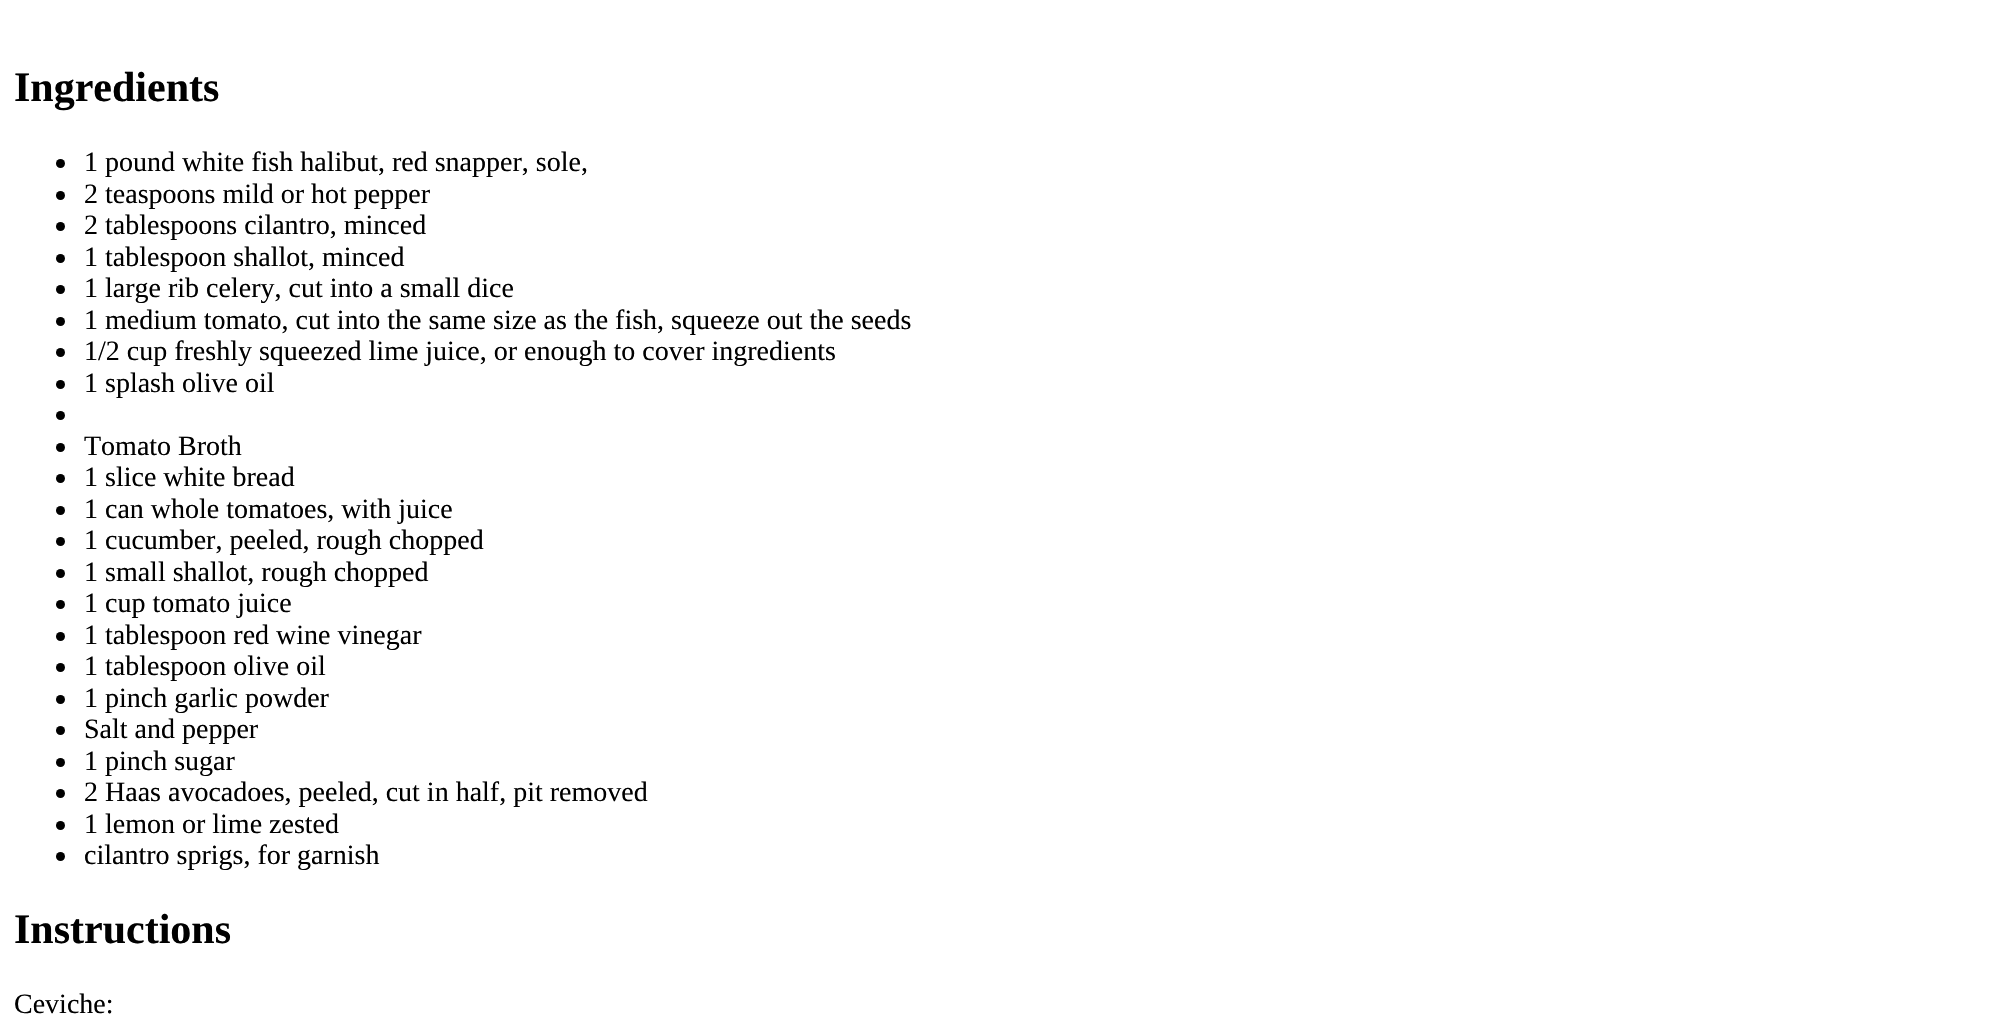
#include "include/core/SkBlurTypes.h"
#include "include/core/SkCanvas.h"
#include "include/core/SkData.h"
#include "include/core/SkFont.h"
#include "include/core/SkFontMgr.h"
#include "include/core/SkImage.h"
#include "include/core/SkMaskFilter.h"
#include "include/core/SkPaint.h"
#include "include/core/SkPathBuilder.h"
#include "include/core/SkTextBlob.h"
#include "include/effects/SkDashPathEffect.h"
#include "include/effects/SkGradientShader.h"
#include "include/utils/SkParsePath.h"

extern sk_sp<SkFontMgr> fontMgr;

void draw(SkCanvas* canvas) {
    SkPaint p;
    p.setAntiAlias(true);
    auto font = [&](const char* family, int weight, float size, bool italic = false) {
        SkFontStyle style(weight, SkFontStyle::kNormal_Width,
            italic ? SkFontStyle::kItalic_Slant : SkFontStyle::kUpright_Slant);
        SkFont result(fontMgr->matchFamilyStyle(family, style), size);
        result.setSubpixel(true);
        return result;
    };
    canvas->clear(0xFFFFFFFF);
    auto font1 = font("Liberation Serif", 700, 42);
    p.setColor(0xFF000000);
    canvas->drawString("Ingredients", 14, 101, font1, p);
    canvas->drawCircle(60.5f, 163.5f, 4.5f, p);
    auto font2 = font("Liberation Serif", 400, 28);
    canvas->drawString("1 pound white fish halibut, red snapper, sole,", 84, 171, font2, p);
    canvas->drawCircle(60.5f, 195.5f, 4.5f, p);
    canvas->drawString("2 teaspoons mild or hot pepper", 84, 203, font2, p);
    canvas->drawCircle(60.5f, 226.5f, 4.5f, p);
    canvas->drawString("2 tablespoons cilantro, minced", 84, 234, font2, p);
    canvas->drawCircle(60.5f, 258.5f, 4.5f, p);
    canvas->drawString("1 tablespoon shallot, minced", 84, 266, font2, p);
    canvas->drawCircle(60.5f, 289.5f, 4.5f, p);
    canvas->drawString("1 large rib celery, cut into a small dice", 84, 297, font2, p);
    canvas->drawCircle(60.5f, 321.5f, 4.5f, p);
    canvas->drawString("1 medium tomato, cut into the same size as the fish, squeeze out the seeds", 84, 329, font2, p);
    canvas->drawCircle(60.5f, 352.5f, 4.5f, p);
    canvas->drawString("1/2 cup freshly squeezed lime juice, or enough to cover ingredients", 84, 360, font2, p);
    canvas->drawCircle(60.5f, 384.5f, 4.5f, p);
    canvas->drawString("1 splash olive oil", 84, 392, font2, p);
    canvas->drawCircle(60.5f, 415.5f, 4.5f, p);
    canvas->drawCircle(60.5f, 447.5f, 4.5f, p);
    canvas->drawString("Tomato Broth", 84, 455, font2, p);
    canvas->drawCircle(60.5f, 478.5f, 4.5f, p);
    canvas->drawString("1 slice white bread", 84, 486, font2, p);
    canvas->drawCircle(60.5f, 510.5f, 4.5f, p);
    canvas->drawString("1 can whole tomatoes, with juice", 84, 518, font2, p);
    canvas->drawCircle(60.5f, 541.5f, 4.5f, p);
    canvas->drawString("1 cucumber, peeled, rough chopped", 84, 549, font2, p);
    canvas->drawCircle(60.5f, 573.5f, 4.5f, p);
    canvas->drawString("1 small shallot, rough chopped", 84, 581, font2, p);
    canvas->drawCircle(60.5f, 604.5f, 4.5f, p);
    canvas->drawString("1 cup tomato juice", 84, 612, font2, p);
    canvas->drawCircle(60.5f, 636.5f, 4.5f, p);
    canvas->drawString("1 tablespoon red wine vinegar", 84, 644, font2, p);
    canvas->drawCircle(60.5f, 667.5f, 4.5f, p);
    canvas->drawString("1 tablespoon olive oil", 84, 675, font2, p);
    canvas->drawCircle(60.5f, 699.5f, 4.5f, p);
    canvas->drawString("1 pinch garlic powder", 84, 707, font2, p);
    canvas->drawCircle(60.5f, 730.5f, 4.5f, p);
    canvas->drawString("Salt and pepper", 84, 738, font2, p);
    canvas->drawCircle(60.5f, 762.5f, 4.5f, p);
    canvas->drawString("1 pinch sugar", 84, 770, font2, p);
    canvas->drawCircle(60.5f, 793.5f, 4.5f, p);
    canvas->drawString("2 Haas avocadoes, peeled, cut in half, pit removed", 84, 801, font2, p);
    canvas->drawCircle(60.5f, 825.5f, 4.5f, p);
    canvas->drawString("1 lemon or lime zested", 84, 833, font2, p);
    canvas->drawCircle(60.5f, 856.5f, 4.5f, p);
    canvas->drawString("cilantro sprigs, for garnish", 84, 864, font2, p);
    canvas->drawString("Instructions", 14, 943, font1, p);
    canvas->drawString("Ceviche:", 14, 1013, font2, p);
}
